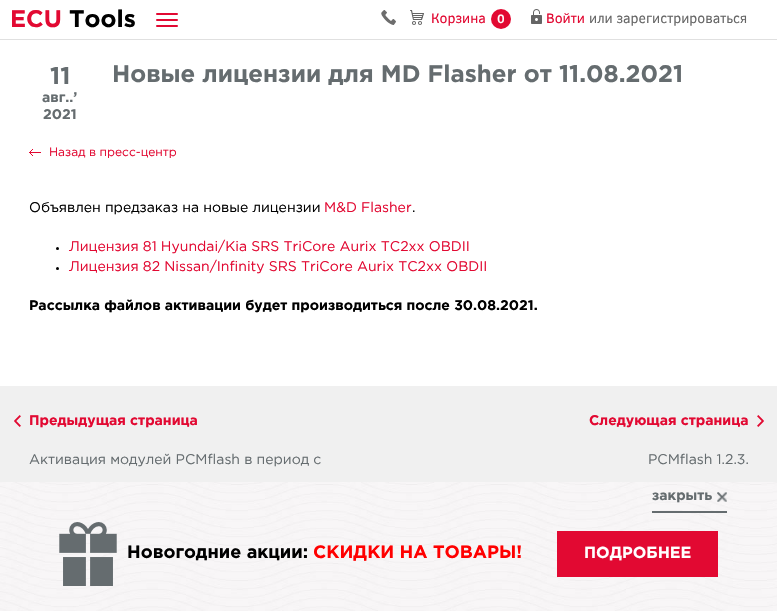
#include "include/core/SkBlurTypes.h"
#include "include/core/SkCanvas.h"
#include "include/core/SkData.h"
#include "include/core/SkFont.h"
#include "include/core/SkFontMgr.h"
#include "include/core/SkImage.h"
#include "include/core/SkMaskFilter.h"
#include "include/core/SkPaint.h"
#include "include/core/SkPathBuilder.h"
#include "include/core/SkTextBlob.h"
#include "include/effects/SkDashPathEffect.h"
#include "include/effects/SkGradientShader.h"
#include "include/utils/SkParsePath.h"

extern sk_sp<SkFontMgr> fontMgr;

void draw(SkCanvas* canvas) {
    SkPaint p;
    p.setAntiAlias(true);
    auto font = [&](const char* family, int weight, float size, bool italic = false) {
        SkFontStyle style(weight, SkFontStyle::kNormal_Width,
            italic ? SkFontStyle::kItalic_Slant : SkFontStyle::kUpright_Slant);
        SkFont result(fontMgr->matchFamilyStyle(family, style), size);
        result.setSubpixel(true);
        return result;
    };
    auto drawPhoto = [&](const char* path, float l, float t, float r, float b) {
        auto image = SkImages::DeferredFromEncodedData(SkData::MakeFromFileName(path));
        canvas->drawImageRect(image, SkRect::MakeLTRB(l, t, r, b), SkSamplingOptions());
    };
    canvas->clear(0xFFFFFFFF);
    p.setColor(0xFFE0E0E0);
    canvas->drawRect(SkRect::MakeLTRB(0, 39, 777, 40), p);
    auto font1 = font("Gotham", 700, 24);
    p.setColor(0xFFE20932);
    canvas->drawString("ECU", 10, 27, font1, p);
    p.setColor(0xFF000000);
    canvas->drawString("Tools", 69, 27, font1, p);
    p.setColor(0xFFE20932);
    canvas->drawRoundRect(SkRect::MakeLTRB(156, 13, 178, 15), 1, 1, p);
    canvas->drawRoundRect(SkRect::MakeLTRB(156, 19, 178, 21), 1, 1, p);
    canvas->drawRoundRect(SkRect::MakeLTRB(156, 25, 178, 27), 1, 1, p);
    drawPhoto("media/1.png", 381, 10, 396, 25);
    drawPhoto("media/2.png", 410, 10, 424, 25);
    auto font2 = font("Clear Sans", 400, 14);
    canvas->drawString("Корзина", 431, 23, font2, p);
    canvas->drawCircle(501, 19, 10, p);
    auto font3 = font("Clear Sans", 700, 12);
    p.setColor(0xFFFFFFFF);
    canvas->drawString("0", 497, 23, font3, p);
    drawPhoto("media/3.png", 531, 9, 542, 24);
    p.setColor(0xFFE20932);
    canvas->drawString("Войти", 546, 23, font2, p);
    p.setColor(0xFF666666);
    canvas->drawString("или зарегистрироваться", 589, 23, font2, p);
    p.setColor(0xFF656C6F);
    canvas->drawString("11", 50, 84, font1, p);
    auto font4 = font("Gotham", 700, 14);
    canvas->drawString("авг..’", 42, 102, font4, p);
    canvas->drawString("2021", 43, 119, font4, p);
    canvas->drawString("Новые лицензии для MD Flasher от 11.08.2021", 112, 82, font1, p);
    drawPhoto("media/4.png", 29, 149, 41, 156);
    auto font5 = font("Gotham", 400, 12);
    p.setColor(0xFFE20932);
    canvas->drawString("Назад в пресс-центр", 49, 156, font5, p);
    auto font6 = font("Gotham", 400, 14);
    p.setColor(0xFF000000);
    canvas->drawString("Объявлен предзаказ на новые лицензии", 29, 212, font6, p);
    p.setColor(0xFFE20932);
    canvas->drawString("M&D Flasher", 324, 212, font6, p);
    p.setColor(0xFF000000);
    canvas->drawString(".", 412, 212, font6, p);
    canvas->drawCircle(57.5f, 248.5f, 1.5f, p);
    p.setColor(0xFFE20932);
    canvas->drawString("Лицензия 81 Hyundai/Kia SRS TriCore Aurix TC2xx OBDII", 69, 251, font6, p);
    p.setColor(0xFF000000);
    canvas->drawCircle(57.5f, 268.5f, 1.5f, p);
    p.setColor(0xFFE20932);
    canvas->drawString("Лицензия 82 Nissan/Infinity SRS TriCore Aurix TC2xx OBDII", 69, 271, font6, p);
    p.setColor(0xFF000000);
    canvas->drawString("Рассылка файлов активации будет производиться после 30.08.2021.", 29, 310, font4, p);
    p.setColor(0xFFF0F0F0);
    canvas->drawRect(SkRect::MakeLTRB(0, 386, 777, 482), p);
    drawPhoto("media/5.png", 14, 415, 21, 427);
    p.setColor(0xFFE20932);
    canvas->drawString("Предыдущая страница", 29, 425, font4, p);
    p.setColor(0xFF656C6F);
    canvas->drawString("Активация модулей PCMflash в период с", 29, 464, font6, p);
    p.setColor(0xFFE20932);
    canvas->drawString("Следующая страница", 589, 425, font4, p);
    drawPhoto("media/6.png", 757, 415, 764, 427);
    p.setColor(0xFF656C6F);
    canvas->drawString("PCMflash 1.2.3.", 648, 464, font6, p);
    drawPhoto("media/7.png", 0, 482, 777, 611);
    canvas->drawRect(SkRect::MakeLTRB(652, 511, 727, 513), p);
    auto font7 = font("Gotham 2", 700, 14);
    canvas->drawString("закрыть", 652, 500, font7, p);
    drawPhoto("media/8.png", 717, 492, 727, 502);
    drawPhoto("media/9.png", 59, 522, 117, 586);
    auto font8 = font("Gotham 2", 700, 18);
    p.setColor(0xFF000000);
    canvas->drawString("Новогодние акции:", 127, 558, font8, p);
    p.setColor(0xFFFF0000);
    canvas->drawString("СКИДКИ НА ТОВАРЫ!", 313, 558, font8, p);
    p.setColor(0xFFE20932);
    canvas->drawRect(SkRect::MakeLTRB(557, 531, 718, 577), p);
    auto font9 = font("Gotham 2", 700, 16);
    p.setColor(0xFFFFFFFF);
    canvas->drawString("ПОДРОБНЕЕ", 584, 558, font9, p);
}
